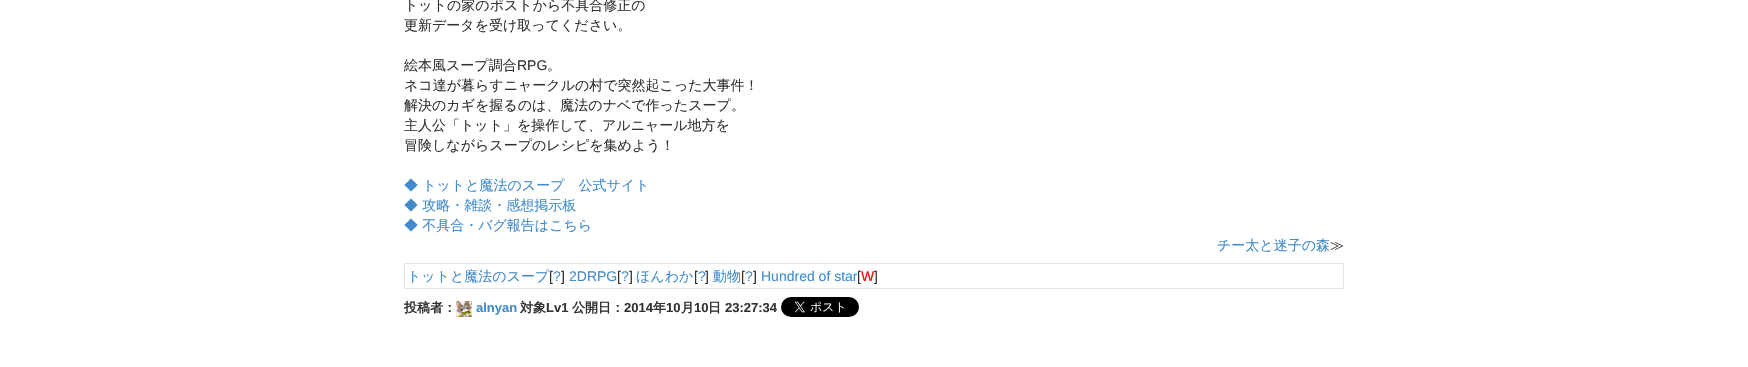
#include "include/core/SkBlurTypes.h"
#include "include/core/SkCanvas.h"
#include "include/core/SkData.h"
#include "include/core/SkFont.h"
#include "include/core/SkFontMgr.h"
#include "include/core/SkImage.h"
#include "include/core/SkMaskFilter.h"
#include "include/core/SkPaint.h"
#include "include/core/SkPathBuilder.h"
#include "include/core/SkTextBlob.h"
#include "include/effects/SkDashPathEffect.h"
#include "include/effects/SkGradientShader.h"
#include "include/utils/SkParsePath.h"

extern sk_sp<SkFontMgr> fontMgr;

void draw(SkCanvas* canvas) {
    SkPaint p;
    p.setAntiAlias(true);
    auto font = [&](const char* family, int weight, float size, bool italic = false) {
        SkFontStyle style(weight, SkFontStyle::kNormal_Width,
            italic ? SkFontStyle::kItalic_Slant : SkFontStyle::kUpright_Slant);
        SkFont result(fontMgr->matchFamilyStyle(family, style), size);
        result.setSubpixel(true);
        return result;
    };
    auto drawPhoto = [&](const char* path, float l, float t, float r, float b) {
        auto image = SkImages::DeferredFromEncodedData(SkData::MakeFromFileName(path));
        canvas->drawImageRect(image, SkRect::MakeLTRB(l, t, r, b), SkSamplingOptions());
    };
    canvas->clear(0xFFFFFFFF);
    auto font1 = font("WenQuanYi Zen Hei", 500, 14);
    p.setColor(0xFF333333);
    {
        const struct { const char* s; float x, y; } items[] = {
            {"トットの家のポストから不具合修正の", 404, 10},
            {"更新データを受け取ってください。", 404, 30},
            {"絵本風スープ調合", 404, 70},
        };
        for (auto [s, x, y] : items) {
            canvas->drawString(s, x, y, font1, p);
        }
    }
    auto font2 = font("Liberation Sans", 400, 14);
    canvas->drawString("RPG", 517, 70, font2, p);
    {
        const struct { const char* s; float x, y; } items[] = {
            {"。", 547, 70},
            {"ネコ達が暮らすニャークルの村で突然起こった大事件！", 404, 90},
            {"解決のカギを握るのは、魔法のナベで作ったスープ。", 404, 110},
            {"主人公「トット」を操作して、アルニャール地方を", 404, 130},
            {"冒険しながらスープのレシピを集めよう！", 404, 150},
        };
        for (auto [s, x, y] : items) {
            canvas->drawString(s, x, y, font1, p);
        }
    }
    p.setColor(0xFF428BCA);
    {
        const struct { const char* s; float x, y; } items[] = {
            {"◆ トットと魔法のスープ　公式サイト", 404, 190},
            {"◆ 攻略・雑談・感想掲示板", 404, 210},
            {"◆ 不具合・バグ報告はこちら", 404, 230},
            {"チー太と迷子の森", 1217, 250},
        };
        for (auto [s, x, y] : items) {
            canvas->drawString(s, x, y, font1, p);
        }
    }
    p.setColor(0xFF333333);
    canvas->drawString("≫", 1330, 250, font1, p);
    p.setStyle(SkPaint::kStroke_Style);
    p.setStrokeWidth(1);
    p.setColor(0xFFE5E5E5);
    canvas->drawRect(SkRect::MakeLTRB(404.5f, 263.5f, 1343.5f, 288.5f), p);
    p.setStyle(SkPaint::kFill_Style);
    p.setColor(0xFF428BCA);
    canvas->drawString("トットと魔法のスープ", 407, 281, font1, p);
    p.setColor(0xFF333333);
    canvas->drawString("[", 549, 281, font2, p);
    p.setColor(0xFF428BCA);
    canvas->drawString("?", 553, 281, font2, p);
    p.setColor(0xFF333333);
    canvas->drawString("]", 561, 281, font2, p);
    p.setColor(0xFF428BCA);
    canvas->drawString("2DRPG ?", 569, 281, font2, p);
    p.setColor(0xFF333333);
    canvas->drawString("[", 617, 281, font2, p);
    canvas->drawString("]", 629, 281, font2, p);
    p.setColor(0xFF428BCA);
    canvas->drawString("ほんわか", 636, 281, font1, p);
    p.setColor(0xFF333333);
    canvas->drawString("[", 694, 281, font2, p);
    canvas->drawString("]", 705, 281, font2, p);
    p.setColor(0xFF428BCA);
    canvas->drawString("動物", 713, 281, font1, p);
    p.setColor(0xFF333333);
    canvas->drawString("[", 741, 281, font2, p);
    canvas->drawString("]", 753, 281, font2, p);
    p.setColor(0xFF428BCA);
    canvas->drawString("Hundred of star", 761, 281, font2, p);
    p.setColor(0xFF333333);
    canvas->drawString("[", 857, 281, font2, p);
    p.setColor(0xFFFF0000);
    canvas->drawString("W", 861, 281, font2, p);
    p.setColor(0xFF333333);
    canvas->drawString("]", 874, 281, font2, p);
    p.setColor(0xFF428BCA);
    canvas->drawString("?", 698, 281, font2, p);
    canvas->drawString("?", 745, 281, font2, p);
    auto font3 = font("WenQuanYi Zen Hei", 700, 13);
    p.setColor(0xFF333333);
    canvas->drawString("投稿者：", 404, 312, font3, p);
    drawPhoto("media/1.png", 456, 301, 472, 317);
    auto font4 = font("Liberation Sans", 700, 13);
    p.setColor(0xFF428BCA);
    canvas->drawString("alnyan", 476, 312, font4, p);
    p.setColor(0xFF333333);
    canvas->drawString("対象", 520, 312, font3, p);
    canvas->drawString("Lv1", 546, 312, font4, p);
    canvas->drawString("公開日：", 572, 312, font3, p);
    canvas->drawString("2014", 624, 312, font4, p);
    canvas->drawString("年", 653, 312, font3, p);
    canvas->drawString("10", 666, 312, font4, p);
    canvas->drawString("月", 681, 312, font3, p);
    canvas->drawString("10", 694, 312, font4, p);
    canvas->drawString("日", 708, 312, font3, p);
    canvas->drawString("23:27:34", 725, 312, font4, p);
    drawPhoto("media/2.png", 781, 297, 859, 317);
}
